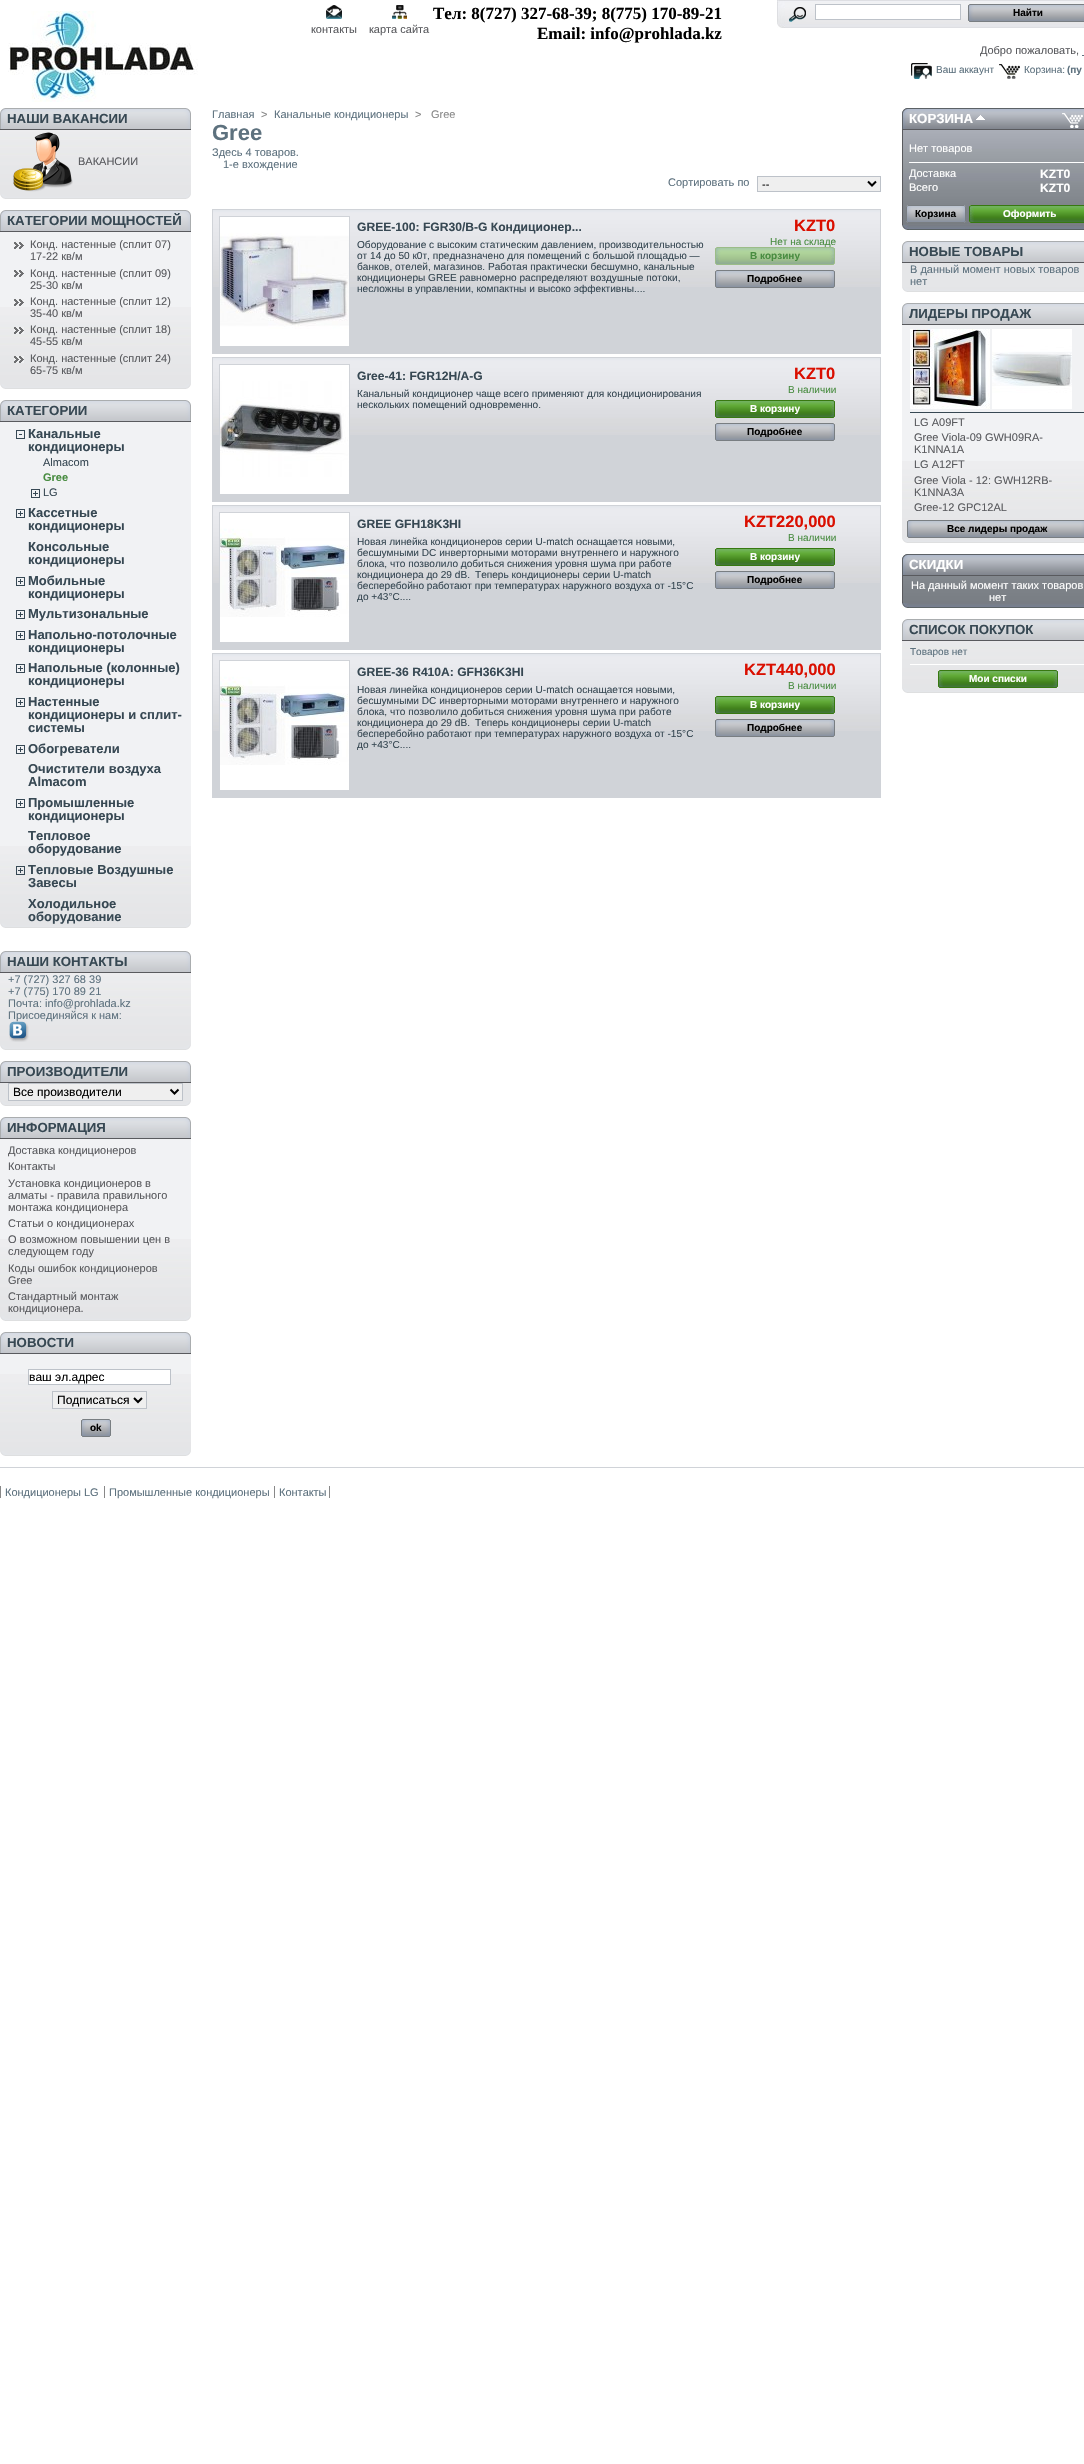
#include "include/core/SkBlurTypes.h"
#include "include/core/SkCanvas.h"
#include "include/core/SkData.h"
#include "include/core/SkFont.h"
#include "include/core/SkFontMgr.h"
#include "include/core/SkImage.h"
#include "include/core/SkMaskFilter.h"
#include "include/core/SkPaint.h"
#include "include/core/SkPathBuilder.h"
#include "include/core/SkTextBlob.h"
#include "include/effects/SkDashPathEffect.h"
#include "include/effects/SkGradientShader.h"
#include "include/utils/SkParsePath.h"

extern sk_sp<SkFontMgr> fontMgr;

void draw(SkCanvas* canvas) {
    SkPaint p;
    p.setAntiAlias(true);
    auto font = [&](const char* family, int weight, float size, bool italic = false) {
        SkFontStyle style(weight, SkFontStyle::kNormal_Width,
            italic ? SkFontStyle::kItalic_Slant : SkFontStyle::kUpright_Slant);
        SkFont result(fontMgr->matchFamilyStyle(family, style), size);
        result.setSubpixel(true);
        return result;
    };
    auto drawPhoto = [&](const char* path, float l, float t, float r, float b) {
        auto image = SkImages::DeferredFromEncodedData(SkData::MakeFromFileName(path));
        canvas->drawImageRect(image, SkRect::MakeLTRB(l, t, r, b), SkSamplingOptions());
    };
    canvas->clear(0xFFFFFFFF);
    drawPhoto("media/1.png", 8, 11, 198, 102);
    auto font1 = font("Liberation Serif", 700, 17);
    p.setColor(0xFF000000);
    canvas->drawString("Тел: 8(727) 327-68-39; 8(775) 170-89-21", 433, 19, font1, p);
    drawPhoto("media/2.png", 326, 5, 342, 19);
    auto font2 = font("Liberation Sans", 400, 11);
    p.setColor(0xFF595A5E);
    canvas->drawString("контакты", 311, 33, font2, p);
    drawPhoto("media/3.png", 392, 5, 407, 19);
    canvas->drawString("карта сайта", 369, 33, font2, p);
    p.setColor(0xFF000000);
    canvas->drawString("Email: info@prohlada.kz", 537, 39, font1, p);
    drawPhoto("media/4.png", 777, 0, 1084, 28);
    drawPhoto("media/5.png", 789, 7, 806, 22);
    p.setColor(0xFFFFFFFF);
    canvas->drawRect(SkRect::MakeLTRB(815.5f, 4.5f, 960.5f, 19.5f), p);
    p.setStyle(SkPaint::kStroke_Style);
    p.setStrokeWidth(1);
    p.setColor(0xFFBDC2C9);
    canvas->drawRect(SkRect::MakeLTRB(815.5f, 4.5f, 960.5f, 19.5f), p);
    p.setStyle(SkPaint::kFill_Style);
    p.setColor(0xFFEFEFEF);
    canvas->drawRect(SkRect::MakeLTRB(968, 4, 969, 22), p);
    drawPhoto("media/6.png", 968, 4, 1084, 22);
    auto font3 = font("Liberation Sans", 700, 10);
    p.setColor(0xFF000000);
    canvas->drawString("Найти", 1013, 16, font3, p);
    p.setColor(0xFF595A5E);
    canvas->drawString("Добро пожаловать,", 980, 54, font2, p);
    p.setColor(0xFF5D717E);
    canvas->drawRect(SkRect::MakeLTRB(1082, 55, 1084, 56), p);
    drawPhoto("media/7.png", 911, 63, 932, 79);
    auto font4 = font("Liberation Sans", 400, 10);
    canvas->drawString("Ваш аккаунт", 936, 73, font4, p);
    drawPhoto("media/8.png", 999, 64, 1020, 79);
    canvas->drawString("Корзина:", 1024, 73, font4, p);
    canvas->drawString("(пу", 1067, 73, font3, p);
    drawPhoto("media/9.png", 0, 194, 191, 199);
    drawPhoto("media/10.png", 0, 108, 191, 129);
    p.setColor(0xFF595A5E);
    canvas->drawRect(SkRect::MakeLTRB(0, 129, 191, 130), p);
    auto font5 = font("Liberation Sans", 700, 13.25f);
    p.setColor(0xFF374853);
    canvas->drawString("НАШИ ВАКАНСИИ", 7, 123, font5, p);
    drawPhoto("media/11.png", 0, 130, 191, 194);
    drawPhoto("media/12.png", 13, 132, 73, 192);
    p.setColor(0xFF595A5E);
    canvas->drawString("ВАКАНСИИ", 78, 165, font2, p);
    drawPhoto("media/9.png", 0, 384, 191, 389);
    drawPhoto("media/10.png", 0, 210, 191, 231);
    canvas->drawRect(SkRect::MakeLTRB(0, 231, 191, 232), p);
    p.setColor(0xFF374853);
    canvas->drawString("КАТЕГОРИИ МОЩНОСТЕЙ", 7, 225, font5, p);
    p.setColor(0xFFF1F2F4);
    canvas->drawRect(SkRect::MakeLTRB(0, 232, 191, 307), p);
    drawPhoto("media/13.png", 0, 307, 191, 384);
    drawPhoto("media/14.png", 14, 242, 24, 249);
    p.setColor(0xFF595A5E);
    canvas->drawString("Конд. настенные (сплит 07)", 30, 248, font2, p);
    canvas->drawString("17-22 кв/м", 30, 260, font2, p);
    drawPhoto("media/14.png", 14, 270, 24, 277);
    canvas->drawString("Конд. настенные (сплит 09)", 30, 277, font2, p);
    canvas->drawString("25-30 кв/м", 30, 289, font2, p);
    drawPhoto("media/14.png", 14, 299, 24, 306);
    canvas->drawString("Конд. настенные (сплит 12)", 30, 305, font2, p);
    canvas->drawString("35-40 кв/м", 30, 317, font2, p);
    drawPhoto("media/14.png", 14, 327, 24, 334);
    canvas->drawString("Конд. настенные (сплит 18)", 30, 333, font2, p);
    canvas->drawString("45-55 кв/м", 30, 345, font2, p);
    drawPhoto("media/14.png", 14, 356, 24, 363);
    canvas->drawString("Конд. настенные (сплит 24)", 30, 362, font2, p);
    canvas->drawString("65-75 кв/м", 30, 374, font2, p);
    drawPhoto("media/9.png", 0, 923, 191, 928);
    drawPhoto("media/10.png", 0, 400, 191, 421);
    canvas->drawRect(SkRect::MakeLTRB(0, 421, 191, 422), p);
    p.setColor(0xFF374853);
    canvas->drawString("КАТЕГОРИИ", 7, 415, font5, p);
    p.setColor(0xFFF1F2F4);
    canvas->drawRect(SkRect::MakeLTRB(0, 422, 191, 846), p);
    drawPhoto("media/13.png", 0, 846, 191, 923);
    drawPhoto("media/15.png", 16, 430, 25, 439);
    auto font6 = font("Liberation Sans", 700, 13);
    p.setColor(0xFF374853);
    canvas->drawString("Канальные", 28, 438, font6, p);
    canvas->drawString("кондиционеры", 28, 451, font6, p);
    canvas->drawString("Almacom", 43, 466, font2, p);
    auto font7 = font("Liberation Sans", 700, 11);
    p.setColor(0xFF488C40);
    canvas->drawString("Gree", 43, 481, font7, p);
    drawPhoto("media/16.png", 31, 489, 40, 498);
    p.setColor(0xFF374853);
    canvas->drawString("LG", 43, 496, font2, p);
    drawPhoto("media/16.png", 16, 509, 25, 518);
    {
        const struct { const char* s; float x, y; } items[] = {
            {"Кассетные", 28, 517},
            {"кондиционеры", 28, 530},
            {"Консольные", 28, 551},
            {"кондиционеры", 28, 564},
        };
        for (auto [s, x, y] : items) {
            canvas->drawString(s, x, y, font6, p);
        }
    }
    drawPhoto("media/16.png", 16, 577, 25, 586);
    canvas->drawString("Мобильные", 28, 585, font6, p);
    canvas->drawString("кондиционеры", 28, 598, font6, p);
    drawPhoto("media/16.png", 16, 610, 25, 619);
    canvas->drawString("Мультизональные", 28, 618, font6, p);
    drawPhoto("media/16.png", 16, 631, 25, 640);
    canvas->drawString("Напольно-потолочные", 28, 639, font6, p);
    canvas->drawString("кондиционеры", 28, 652, font6, p);
    drawPhoto("media/16.png", 16, 664, 25, 673);
    canvas->drawString("Напольные (колонные)", 28, 672, font6, p);
    canvas->drawString("кондиционеры", 28, 685, font6, p);
    drawPhoto("media/16.png", 16, 698, 25, 707);
    {
        const struct { const char* s; float x, y; } items[] = {
            {"Настенные", 28, 706},
            {"кондиционеры и сплит-", 28, 719},
            {"системы", 28, 732},
        };
        for (auto [s, x, y] : items) {
            canvas->drawString(s, x, y, font6, p);
        }
    }
    drawPhoto("media/16.png", 16, 745, 25, 754);
    {
        const struct { const char* s; float x, y; } items[] = {
            {"Обогреватели", 28, 753},
            {"Очистители воздуха", 28, 773},
            {"Almacom", 28, 786},
        };
        for (auto [s, x, y] : items) {
            canvas->drawString(s, x, y, font6, p);
        }
    }
    drawPhoto("media/16.png", 16, 799, 25, 808);
    {
        const struct { const char* s; float x, y; } items[] = {
            {"Промышленные", 28, 807},
            {"кондиционеры", 28, 820},
            {"Тепловое", 28, 840},
            {"оборудование", 28, 853},
        };
        for (auto [s, x, y] : items) {
            canvas->drawString(s, x, y, font6, p);
        }
    }
    drawPhoto("media/17.png", 16, 866, 25, 875);
    {
        const struct { const char* s; float x, y; } items[] = {
            {"Тепловые Воздушные", 28, 874},
            {"Завесы", 28, 887},
            {"Холодильное", 28, 908},
            {"оборудование", 28, 921},
        };
        for (auto [s, x, y] : items) {
            canvas->drawString(s, x, y, font6, p);
        }
    }
    drawPhoto("media/9.png", 0, 1045, 191, 1050);
    drawPhoto("media/10.png", 0, 951, 191, 972);
    p.setColor(0xFF595A5E);
    canvas->drawRect(SkRect::MakeLTRB(0, 972, 191, 973), p);
    p.setColor(0xFF374853);
    canvas->drawString("НАШИ КОНТАКТЫ", 7, 966, font5, p);
    drawPhoto("media/18.png", 0, 973, 191, 1045);
    p.setColor(0xFF5D717E);
    {
        const struct { const char* s; float x, y; } items[] = {
            {"+7 (727) 327 68 39", 8, 983},
            {"+7 (775) 170 89 21", 8, 995},
            {"Почта: info@prohlada.kz", 8, 1007},
            {"Присоединяйся к нам:", 8, 1019},
        };
        for (auto [s, x, y] : items) {
            canvas->drawString(s, x, y, font2, p);
        }
    }
    drawPhoto("media/19.png", 9, 1021, 29, 1042);
    drawPhoto("media/9.png", 0, 1101, 191, 1106);
    drawPhoto("media/10.png", 0, 1061, 191, 1082);
    p.setColor(0xFF595A5E);
    canvas->drawRect(SkRect::MakeLTRB(0, 1082, 191, 1083), p);
    p.setColor(0xFF374853);
    canvas->drawString("ПРОИЗВОДИТЕЛИ", 7, 1076, font5, p);
    p.setColor(0xFFE5E6E8);
    canvas->drawRect(SkRect::MakeLTRB(0, 1083, 191, 1101), p);
    p.setColor(0xFFEFEFEF);
    canvas->drawRect(SkRect::MakeLTRB(8.5f, 1083.5f, 182.5f, 1100.5f), p);
    p.setStyle(SkPaint::kStroke_Style);
    p.setColor(0xFFBDC2C9);
    canvas->drawRect(SkRect::MakeLTRB(8.5f, 1083.5f, 182.5f, 1100.5f), p);
    p.setStrokeWidth(2);
    p.setColor(0xFF000000);
    canvas->drawPath(SkPathBuilder().moveTo(170.5f, 1089.5f).lineTo(174.5f, 1093.5f).lineTo(178.5f, 1089.5f).detach(), p);
    auto font8 = font("Liberation Sans", 400, 12);
    p.setStyle(SkPaint::kFill_Style);
    canvas->drawString("Все производители", 13, 1096, font8, p);
    drawPhoto("media/9.png", 0, 1316, 191, 1321);
    drawPhoto("media/10.png", 0, 1117, 191, 1138);
    p.setColor(0xFF595A5E);
    canvas->drawRect(SkRect::MakeLTRB(0, 1138, 191, 1139), p);
    p.setColor(0xFF374853);
    canvas->drawString("ИНФОРМАЦИЯ", 7, 1132, font5, p);
    p.setColor(0xFFF1F2F4);
    canvas->drawRect(SkRect::MakeLTRB(0, 1139, 191, 1239), p);
    drawPhoto("media/13.png", 0, 1239, 191, 1316);
    p.setColor(0xFF595A5E);
    {
        const struct { const char* s; float x, y; } items[] = {
            {"Доставка кондиционеров", 8, 1154},
            {"Контакты", 8, 1170},
            {"Установка кондиционеров в", 8, 1187},
            {"алматы - правила правильного", 8, 1199},
            {"монтажа кондиционера", 8, 1211},
            {"Статьи о кондиционерах", 8, 1227},
            {"О возможном повышении цен в", 8, 1243},
            {"следующем году", 8, 1255},
            {"Коды ошибок кондиционеров", 8, 1272},
            {"Gree", 8, 1284},
            {"Стандартный монтаж", 8, 1300},
            {"кондиционера.", 8, 1312},
        };
        for (auto [s, x, y] : items) {
            canvas->drawString(s, x, y, font2, p);
        }
    }
    drawPhoto("media/9.png", 0, 1451, 191, 1456);
    drawPhoto("media/10.png", 0, 1332, 191, 1353);
    canvas->drawRect(SkRect::MakeLTRB(0, 1353, 191, 1354), p);
    p.setColor(0xFF374853);
    canvas->drawString("НОВОСТИ", 7, 1347, font5, p);
    p.setColor(0xFFF1F2F4);
    canvas->drawRect(SkRect::MakeLTRB(0, 1354, 191, 1374), p);
    drawPhoto("media/13.png", 0, 1374, 191, 1451);
    p.setColor(0xFFFFFFFF);
    canvas->drawRect(SkRect::MakeLTRB(28.5f, 1369.5f, 170.5f, 1384.5f), p);
    p.setStyle(SkPaint::kStroke_Style);
    p.setStrokeWidth(1);
    p.setColor(0xFFBDC2C9);
    canvas->drawRect(SkRect::MakeLTRB(28.5f, 1369.5f, 170.5f, 1384.5f), p);
    p.setStyle(SkPaint::kFill_Style);
    p.setColor(0xFF000000);
    canvas->drawString("ваш эл.адрес", 29, 1381, font8, p);
    p.setColor(0xFFEFEFEF);
    canvas->drawRect(SkRect::MakeLTRB(52.5f, 1391.5f, 146.5f, 1408.5f), p);
    p.setStyle(SkPaint::kStroke_Style);
    p.setColor(0xFFBDC2C9);
    canvas->drawRect(SkRect::MakeLTRB(52.5f, 1391.5f, 146.5f, 1408.5f), p);
    p.setStrokeWidth(2);
    p.setColor(0xFF000000);
    canvas->drawPath(SkPathBuilder().moveTo(134, 1398).lineTo(138, 1402).lineTo(142, 1398).detach(), p);
    p.setStyle(SkPaint::kFill_Style);
    canvas->drawString("Подписаться", 57, 1404, font8, p);
    p.setColor(0xFFEFEFEF);
    canvas->drawRect(SkRect::MakeLTRB(81, 1419, 111, 1437), p);
    drawPhoto("media/20.png", 81, 1419, 111, 1437);
    p.setColor(0xFF000000);
    canvas->drawString("ok", 90, 1431, font3, p);
    p.setColor(0xFF5D717E);
    canvas->drawString("Главная", 212, 118, font2, p);
    p.setColor(0xFF888888);
    canvas->drawString(">", 261, 118, font2, p);
    p.setColor(0xFF5D717E);
    canvas->drawString("Канальные кондиционеры", 274, 118, font2, p);
    p.setColor(0xFF888888);
    canvas->drawString(">", 415, 118, font2, p);
    canvas->drawString("Gree", 431, 118, font2, p);
    auto font9 = font("Liberation Sans", 700, 22);
    p.setColor(0xFF5D717E);
    canvas->drawString("Gree", 212, 140, font9, p);
    {
        const struct { const char* s; float x, y; } items[] = {
            {"Здесь 4 товаров.", 212, 156},
            {"1-е вхождение", 223, 168},
            {"Сортировать по", 668, 186},
        };
        for (auto [s, x, y] : items) {
            canvas->drawString(s, x, y, font2, p);
        }
    }
    p.setColor(0xFFEFEFEF);
    canvas->drawRect(SkRect::MakeLTRB(757.5f, 176.5f, 880.5f, 191.5f), p);
    p.setStyle(SkPaint::kStroke_Style);
    p.setStrokeWidth(1);
    p.setColor(0xFFBDC2C9);
    canvas->drawRect(SkRect::MakeLTRB(757.5f, 176.5f, 880.5f, 191.5f), p);
    p.setStrokeWidth(2);
    p.setColor(0xFF000000);
    canvas->drawPath(SkPathBuilder().moveTo(868, 181.5f).lineTo(872, 185.5f).lineTo(876, 181.5f).detach(), p);
    p.setStyle(SkPaint::kFill_Style);
    canvas->drawString("--", 762, 188, font2, p);
    p.setColor(0xFFD0D3D8);
    canvas->drawRect(SkRect::MakeLTRB(213, 287, 880, 353), p);
    drawPhoto("media/21.png", 213, 210, 880, 287);
    p.setStyle(SkPaint::kStroke_Style);
    p.setStrokeWidth(1);
    canvas->drawRect(SkRect::MakeLTRB(212.5f, 209.5f, 880.5f, 353.5f), p);
    canvas->drawRect(SkRect::MakeLTRB(219.5f, 216.5f, 349.5f, 346.5f), p);
    drawPhoto("media/22.png", 220, 217, 349, 346);
    auto font10 = font("Liberation Sans", 700, 12.1f);
    p.setStyle(SkPaint::kFill_Style);
    p.setColor(0xFF374853);
    canvas->drawString("GREE-100: FGR30/B-G Кондиционер...", 357, 231, font10, p);
    auto font11 = font("Liberation Sans", 400, 10.1f);
    {
        const struct { const char* s; float x, y; } items[] = {
            {"Оборудование с высоким статическим давлением, производительностью", 357, 248},
            {"от 14 до 50 к0т, предназначено для помещений с большой площадью —", 357, 259},
            {"банков, отелей, магазинов. Работая практически бесшумно, канальные", 357, 270},
            {"кондиционеры GREE равномерно распределяют воздушные потоки,", 357, 281},
            {"несложны в управлении, компактны и высоко эффективны....", 357, 292},
        };
        for (auto [s, x, y] : items) {
            canvas->drawString(s, x, y, font11, p);
        }
    }
    auto font12 = font("Liberation Sans", 700, 16.5f);
    p.setColor(0xFFDA0F00);
    canvas->drawString("KZT0", 794, 231, font12, p);
    p.setColor(0xFF488C40);
    canvas->drawString("Нет на складе", 770, 245, font4, p);
    drawPhoto("media/23.png", 715, 247, 835, 265);
    canvas->drawString("В корзину", 750, 259, font3, p);
    drawPhoto("media/24.png", 715, 270, 835, 288);
    p.setColor(0xFF000000);
    canvas->drawString("Подробнее", 747, 282, font3, p);
    p.setColor(0xFFD0D3D8);
    canvas->drawRect(SkRect::MakeLTRB(213, 435, 880, 501), p);
    drawPhoto("media/21.png", 213, 358, 880, 435);
    p.setStyle(SkPaint::kStroke_Style);
    canvas->drawRect(SkRect::MakeLTRB(212.5f, 357.5f, 880.5f, 501.5f), p);
    canvas->drawRect(SkRect::MakeLTRB(219.5f, 364.5f, 349.5f, 494.5f), p);
    drawPhoto("media/25.png", 220, 365, 349, 494);
    p.setStyle(SkPaint::kFill_Style);
    p.setColor(0xFF374853);
    canvas->drawString("Gree-41: FGR12H/A-G", 357, 380, font10, p);
    canvas->drawString("Канальный кондиционер чаще всего применяют для кондиционирования", 357, 397, font11, p);
    canvas->drawString("нескольких помещений одновременно.", 357, 408, font11, p);
    p.setColor(0xFFDA0F00);
    canvas->drawString("KZT0", 794, 379, font12, p);
    p.setColor(0xFF488C40);
    canvas->drawString("В наличии", 788, 393, font4, p);
    drawPhoto("media/26.png", 715, 400, 835, 418);
    p.setColor(0xFFFFFFFF);
    canvas->drawString("В корзину", 750, 412, font3, p);
    drawPhoto("media/27.png", 715, 423, 835, 441);
    p.setColor(0xFF000000);
    canvas->drawString("Подробнее", 747, 435, font3, p);
    p.setColor(0xFFD0D3D8);
    canvas->drawRect(SkRect::MakeLTRB(213, 583, 880, 649), p);
    drawPhoto("media/21.png", 213, 506, 880, 583);
    p.setStyle(SkPaint::kStroke_Style);
    canvas->drawRect(SkRect::MakeLTRB(212.5f, 505.5f, 880.5f, 649.5f), p);
    canvas->drawRect(SkRect::MakeLTRB(219.5f, 512.5f, 349.5f, 642.5f), p);
    drawPhoto("media/28.png", 220, 513, 349, 642);
    p.setStyle(SkPaint::kFill_Style);
    p.setColor(0xFF374853);
    canvas->drawString("GREE GFH18K3HI", 357, 528, font10, p);
    {
        const struct { const char* s; float x, y; } items[] = {
            {"Новая линейка кондиционеров серии U-match оснащается новыми,", 357, 545},
            {"бесшумными DC инверторными моторами внутреннего и наружного", 357, 556},
            {"блока, что позволило добиться снижения уровня шума при работе", 357, 567},
            {"кондиционера до 29 dB.", 357, 578},
            {"Теперь кондиционеры серии U-match", 475, 578},
            {"бесперебойно работают при температурах наружного воздуха от -15°C", 357, 589},
            {"до +43°C....", 357, 600},
        };
        for (auto [s, x, y] : items) {
            canvas->drawString(s, x, y, font11, p);
        }
    }
    p.setColor(0xFFDA0F00);
    canvas->drawString("KZT220,000", 744, 527, font12, p);
    p.setColor(0xFF488C40);
    canvas->drawString("В наличии", 788, 541, font4, p);
    drawPhoto("media/26.png", 715, 548, 835, 566);
    p.setColor(0xFFFFFFFF);
    canvas->drawString("В корзину", 750, 560, font3, p);
    drawPhoto("media/27.png", 715, 571, 835, 589);
    p.setColor(0xFF000000);
    canvas->drawString("Подробнее", 747, 583, font3, p);
    p.setColor(0xFFD0D3D8);
    canvas->drawRect(SkRect::MakeLTRB(213, 731, 880, 797), p);
    drawPhoto("media/21.png", 213, 654, 880, 731);
    p.setStyle(SkPaint::kStroke_Style);
    canvas->drawRect(SkRect::MakeLTRB(212.5f, 653.5f, 880.5f, 797.5f), p);
    canvas->drawRect(SkRect::MakeLTRB(219.5f, 660.5f, 349.5f, 790.5f), p);
    drawPhoto("media/28.png", 220, 661, 349, 790);
    p.setStyle(SkPaint::kFill_Style);
    p.setColor(0xFF374853);
    canvas->drawString("GREE-36 R410A: GFH36K3HI", 357, 676, font10, p);
    {
        const struct { const char* s; float x, y; } items[] = {
            {"Новая линейка кондиционеров серии U-match оснащается новыми,", 357, 693},
            {"бесшумными DC инверторными моторами внутреннего и наружного", 357, 704},
            {"блока, что позволило добиться снижения уровня шума при работе", 357, 715},
            {"кондиционера до 29 dB.", 357, 726},
            {"Теперь кондиционеры серии U-match", 475, 726},
            {"бесперебойно работают при температурах наружного воздуха от -15°C", 357, 737},
            {"до +43°C....", 357, 748},
        };
        for (auto [s, x, y] : items) {
            canvas->drawString(s, x, y, font11, p);
        }
    }
    p.setColor(0xFFDA0F00);
    canvas->drawString("KZT440,000", 744, 675, font12, p);
    p.setColor(0xFF488C40);
    canvas->drawString("В наличии", 788, 689, font4, p);
    drawPhoto("media/26.png", 715, 696, 835, 714);
    p.setColor(0xFFFFFFFF);
    canvas->drawString("В корзину", 750, 708, font3, p);
    drawPhoto("media/27.png", 715, 719, 835, 737);
    p.setColor(0xFF000000);
    canvas->drawString("Подробнее", 747, 731, font3, p);
    drawPhoto("media/29.png", 902, 225, 1084, 230);
    drawPhoto("media/30.png", 902, 108, 1084, 129);
    p.setColor(0xFF595A5E);
    canvas->drawRect(SkRect::MakeLTRB(902, 129, 1084, 130), p);
    p.setColor(0xFFFFFFFF);
    canvas->drawString("КОРЗИНА", 909, 123, font5, p);
    drawPhoto("media/31.png", 976, 115, 985, 120);
    drawPhoto("media/32.png", 903, 130, 1084, 225);
    p.setColor(0xFF595A5E);
    canvas->drawRect(SkRect::MakeLTRB(902, 130, 903, 225), p);
    p.setColor(0xFFFFFFFF);
    canvas->drawString("Нет товаров", 909, 152, font2, p);
    canvas->drawRect(SkRect::MakeLTRB(909, 162, 1084, 163), p);
    canvas->drawString("Доставка", 909, 177, font2, p);
    canvas->drawString("KZT0", 1040, 178, font10, p);
    canvas->drawString("Всего", 909, 191, font2, p);
    canvas->drawString("KZT0", 1040, 192, font10, p);
    drawPhoto("media/33.png", 906, 205, 966, 223);
    p.setColor(0xFF000000);
    canvas->drawString("Корзина", 915, 217, font3, p);
    drawPhoto("media/34.png", 969, 205, 1084, 223);
    p.setColor(0xFFFFFFFF);
    canvas->drawString("Оформить", 1003, 217, font3, p);
    drawPhoto("media/35.png", 902, 287, 1084, 292);
    drawPhoto("media/36.png", 902, 241, 1084, 262);
    p.setColor(0xFF595A5E);
    canvas->drawRect(SkRect::MakeLTRB(902, 262, 1084, 263), p);
    p.setColor(0xFF374853);
    canvas->drawString("НОВЫЕ ТОВАРЫ", 909, 256, font5, p);
    p.setColor(0xFFE5E6E8);
    canvas->drawRect(SkRect::MakeLTRB(902, 263, 1084, 287), p);
    p.setColor(0xFF5D717E);
    canvas->drawString("В данный момент новых товаров", 910, 273, font2, p);
    canvas->drawString("нет", 910, 285, font2, p);
    drawPhoto("media/35.png", 902, 538, 1084, 543);
    drawPhoto("media/36.png", 902, 303, 1084, 324);
    p.setColor(0xFF595A5E);
    canvas->drawRect(SkRect::MakeLTRB(902, 324, 1084, 325), p);
    p.setColor(0xFF374853);
    canvas->drawString("ЛИДЕРЫ ПРОДАЖ", 909, 318, font5, p);
    p.setColor(0xFFF1F2F4);
    canvas->drawRect(SkRect::MakeLTRB(902, 325, 1084, 461), p);
    drawPhoto("media/37.png", 902, 461, 1084, 538);
    drawPhoto("media/38.png", 910, 329, 990, 409);
    drawPhoto("media/39.png", 992, 329, 1072, 409);
    p.setColor(0xFF374853);
    canvas->drawRect(SkRect::MakeLTRB(910, 412, 1084, 413), p);
    p.setColor(0xFF595A5E);
    {
        const struct { const char* s; float x, y; } items[] = {
            {"LG A09FT", 914, 426},
            {"Gree Viola-09 GWH09RA-", 914, 441},
            {"K1NNA1A", 914, 453},
            {"LG A12FT", 914, 468},
            {"Gree Viola - 12: GWH12RB-", 914, 484},
            {"K1NNA3A", 914, 496},
            {"Gree-12 GPC12AL", 914, 511},
        };
        for (auto [s, x, y] : items) {
            canvas->drawString(s, x, y, font2, p);
        }
    }
    drawPhoto("media/40.png", 907, 520, 1084, 538);
    p.setColor(0xFF000000);
    canvas->drawString("Все лидеры продаж", 947, 532, font3, p);
    drawPhoto("media/29.png", 902, 603, 1084, 608);
    drawPhoto("media/41.png", 902, 554, 1084, 575);
    p.setColor(0xFF595A5E);
    canvas->drawRect(SkRect::MakeLTRB(902, 575, 1084, 576), p);
    p.setColor(0xFFFFFFFF);
    canvas->drawString("СКИДКИ", 909, 569, font5, p);
    drawPhoto("media/42.png", 903, 576, 1084, 603);
    p.setColor(0xFF595A5E);
    canvas->drawRect(SkRect::MakeLTRB(902, 576, 903, 603), p);
    p.setColor(0xFFFFFFFF);
    canvas->drawString("На данный момент таких товаров", 911, 589, font2, p);
    canvas->drawString("нет", 989, 601, font2, p);
    drawPhoto("media/35.png", 902, 688, 1084, 693);
    drawPhoto("media/36.png", 902, 619, 1084, 640);
    p.setColor(0xFF595A5E);
    canvas->drawRect(SkRect::MakeLTRB(902, 640, 1084, 641), p);
    p.setColor(0xFF374853);
    canvas->drawString("СПИСОК ПОКУПОК", 909, 634, font5, p);
    drawPhoto("media/43.png", 902, 641, 1084, 688);
    p.setColor(0xFFFFFFFF);
    canvas->drawRect(SkRect::MakeLTRB(910, 664, 1084, 665), p);
    p.setColor(0xFF5D717E);
    canvas->drawString("Товаров нет", 910, 655, font4, p);
    drawPhoto("media/44.png", 938, 670, 1058, 688);
    p.setColor(0xFFFFFFFF);
    canvas->drawString("Мои списки", 969, 682, font3, p);
    p.setColor(0xFFD0D3D8);
    canvas->drawRect(SkRect::MakeLTRB(0, 1467, 1084, 1468), p);
    p.setColor(0xFF5D717E);
    canvas->drawString("Кондиционеры LG", 5, 1496, font2, p);
    p.setColor(0xFF888888);
    canvas->drawRect(SkRect::MakeLTRB(0, 1486, 1, 1498), p);
    p.setColor(0xFF5D717E);
    canvas->drawString("Промышленные кондиционеры", 109, 1496, font2, p);
    p.setColor(0xFF888888);
    canvas->drawRect(SkRect::MakeLTRB(104, 1486, 105, 1498), p);
    p.setColor(0xFF5D717E);
    canvas->drawString("Контакты", 279, 1496, font2, p);
    p.setColor(0xFF888888);
    canvas->drawRect(SkRect::MakeLTRB(274, 1486, 275, 1498), p);
    canvas->drawRect(SkRect::MakeLTRB(329, 1486, 330, 1498), p);
}
